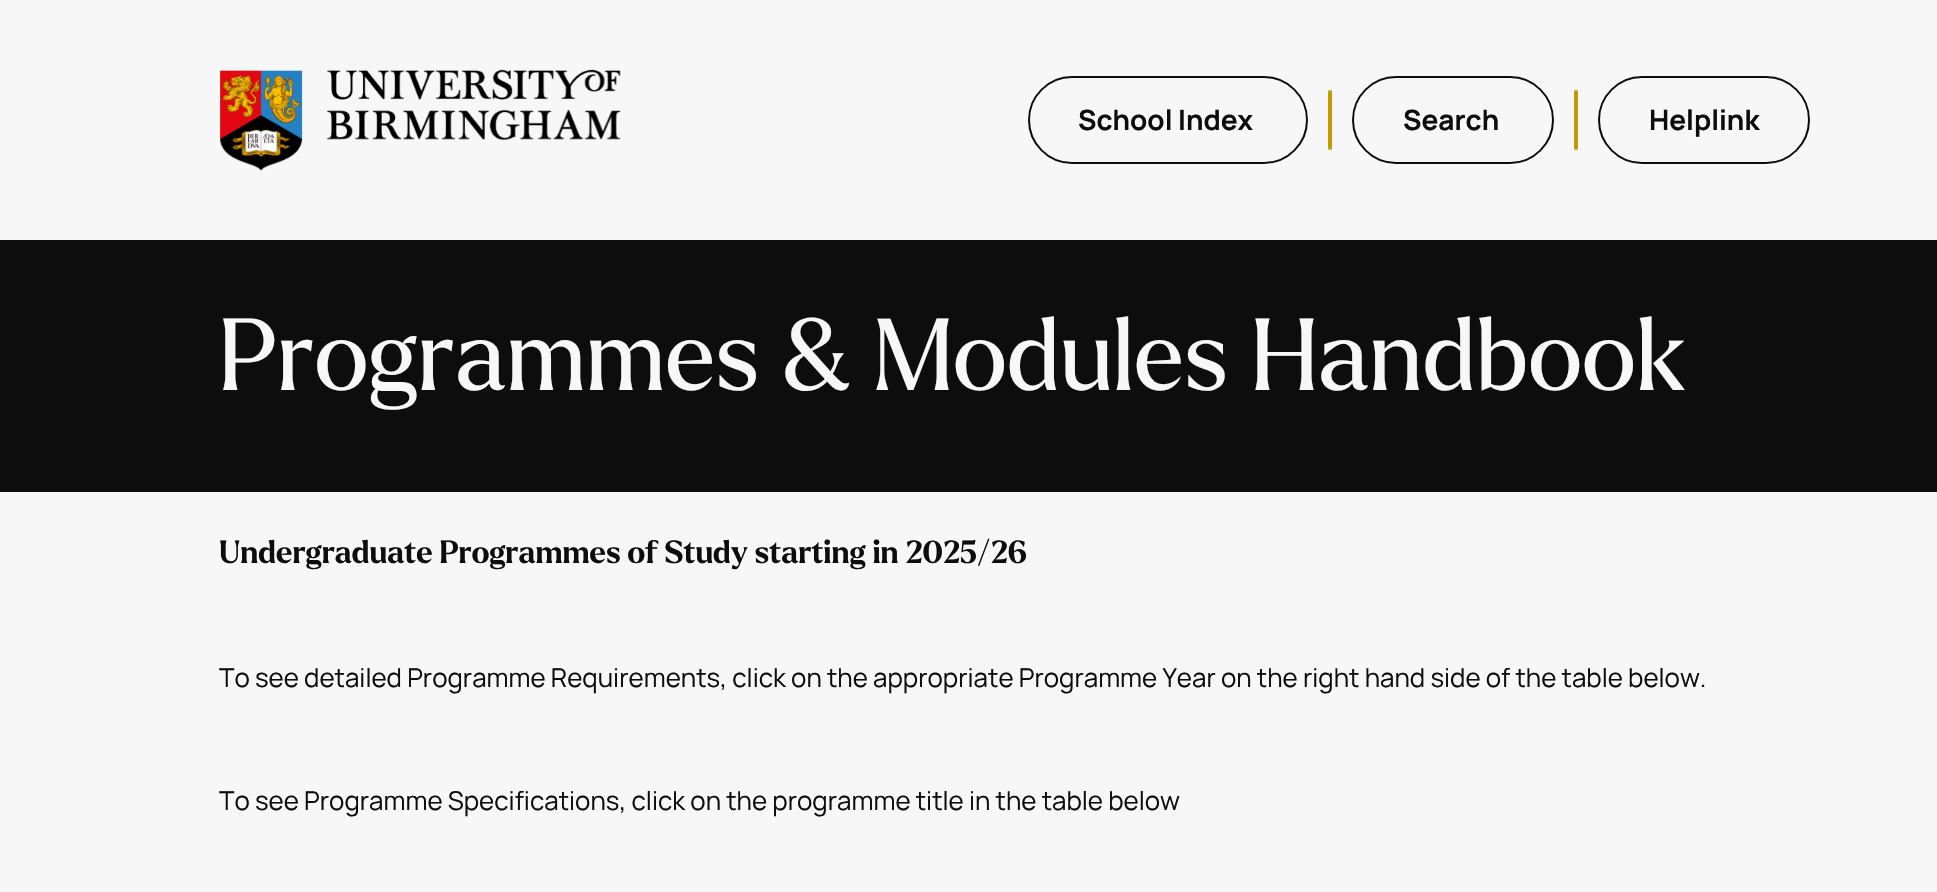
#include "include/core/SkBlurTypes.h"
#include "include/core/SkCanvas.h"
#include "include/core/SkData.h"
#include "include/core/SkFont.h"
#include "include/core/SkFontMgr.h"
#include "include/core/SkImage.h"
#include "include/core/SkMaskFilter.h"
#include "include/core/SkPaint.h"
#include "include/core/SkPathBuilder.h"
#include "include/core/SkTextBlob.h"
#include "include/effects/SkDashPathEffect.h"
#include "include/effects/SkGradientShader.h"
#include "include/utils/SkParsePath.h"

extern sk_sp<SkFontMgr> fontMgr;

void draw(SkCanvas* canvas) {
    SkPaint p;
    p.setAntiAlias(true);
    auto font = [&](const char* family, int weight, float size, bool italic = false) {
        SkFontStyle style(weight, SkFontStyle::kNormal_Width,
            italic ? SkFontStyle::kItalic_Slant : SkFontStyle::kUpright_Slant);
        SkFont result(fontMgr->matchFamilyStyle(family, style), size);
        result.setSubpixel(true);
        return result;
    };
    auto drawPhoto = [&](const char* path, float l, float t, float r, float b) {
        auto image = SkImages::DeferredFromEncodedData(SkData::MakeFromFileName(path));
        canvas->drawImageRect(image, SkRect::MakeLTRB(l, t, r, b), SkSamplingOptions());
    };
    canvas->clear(0xFFF7F7F7);
    drawPhoto("media/1.png", 220, 69, 621, 171);
    p.setStyle(SkPaint::kStroke_Style);
    p.setStrokeWidth(2);
    p.setColor(0xFF0D0D0D);
    canvas->drawRoundRect(SkRect::MakeLTRB(1029, 77, 1307, 163), 43, 43, p);
    auto font1 = font("Manrope", 700, 28);
    p.setStyle(SkPaint::kFill_Style);
    canvas->drawString("School Index", 1078, 130, font1, p);
    p.setColor(0xFFC59A00);
    canvas->drawRoundRect(SkRect::MakeLTRB(1328, 90, 1332, 150), 2, 2, p);
    p.setStyle(SkPaint::kStroke_Style);
    p.setColor(0xFF0D0D0D);
    canvas->drawRoundRect(SkRect::MakeLTRB(1353, 77, 1553, 163), 43, 43, p);
    p.setStyle(SkPaint::kFill_Style);
    canvas->drawString("Search", 1403, 130, font1, p);
    p.setColor(0xFFC59A00);
    canvas->drawRoundRect(SkRect::MakeLTRB(1574, 90, 1578, 150), 2, 2, p);
    p.setStyle(SkPaint::kStroke_Style);
    p.setColor(0xFF0D0D0D);
    canvas->drawRoundRect(SkRect::MakeLTRB(1599, 77, 1809, 163), 43, 43, p);
    p.setStyle(SkPaint::kFill_Style);
    canvas->drawString("Helplink", 1649, 130, font1, p);
    canvas->drawRect(SkRect::MakeLTRB(0, 240, 1937, 492), p);
    auto font2 = font("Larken", 400, 99.25f);
    p.setColor(0xFFF7F7F7);
    canvas->drawString("Programmes & Modules Handbook", 219, 390, font2, p);
    auto font3 = font("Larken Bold", 700, 31.1f);
    p.setColor(0xFF0D0D0D);
    canvas->drawString("Undergraduate Programmes of Study starting in 2025/26", 219, 563, font3, p);
    auto font4 = font("Manrope", 400, 25.92f);
    canvas->drawString("To see detailed Programme Requirements, click on the appropriate Programme Year on the right hand side of the table below.", 219, 687, font4, p);
    canvas->drawString("To see Programme Specifications, click on the programme title in the table below", 219, 810, font4, p);
}
